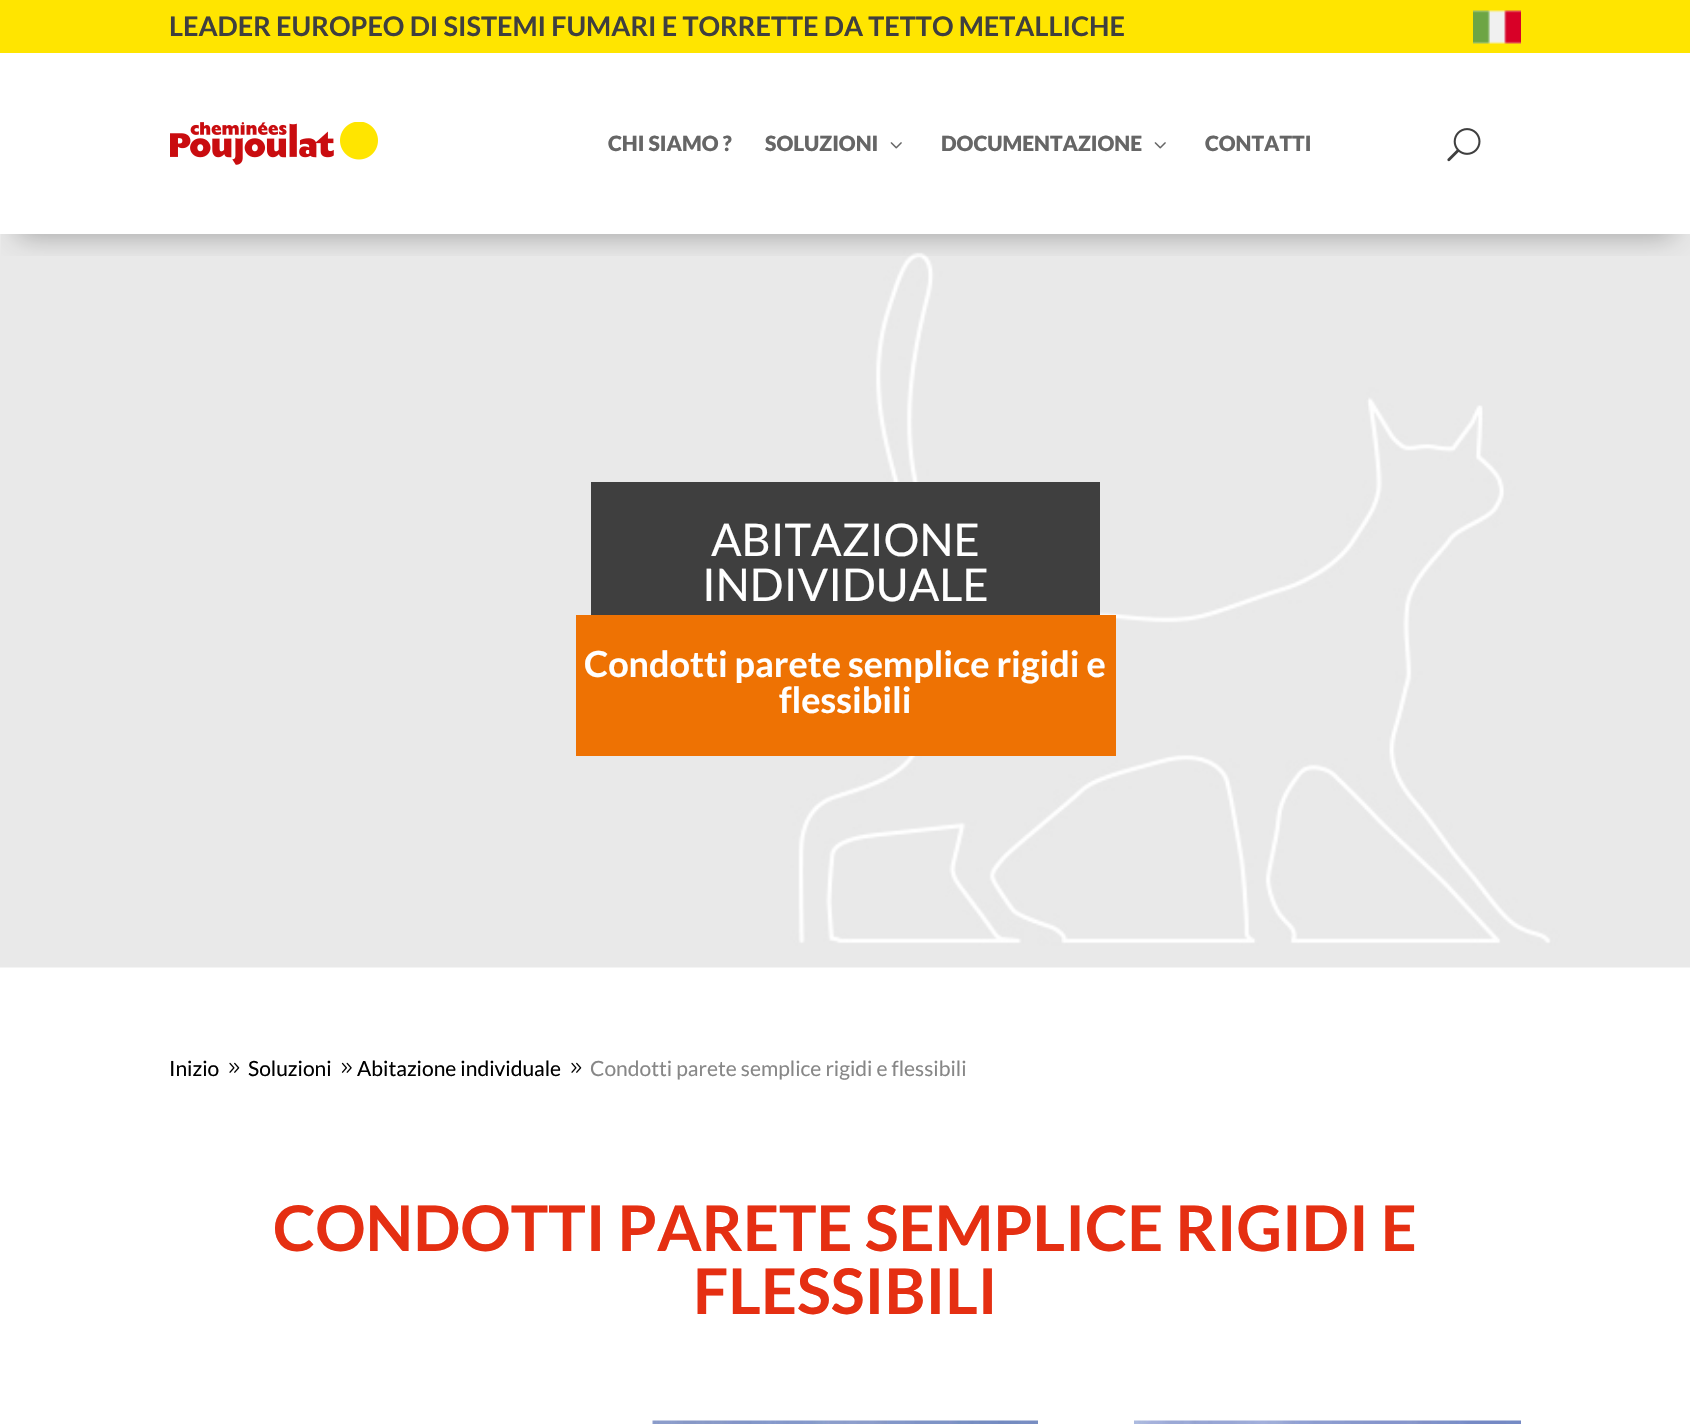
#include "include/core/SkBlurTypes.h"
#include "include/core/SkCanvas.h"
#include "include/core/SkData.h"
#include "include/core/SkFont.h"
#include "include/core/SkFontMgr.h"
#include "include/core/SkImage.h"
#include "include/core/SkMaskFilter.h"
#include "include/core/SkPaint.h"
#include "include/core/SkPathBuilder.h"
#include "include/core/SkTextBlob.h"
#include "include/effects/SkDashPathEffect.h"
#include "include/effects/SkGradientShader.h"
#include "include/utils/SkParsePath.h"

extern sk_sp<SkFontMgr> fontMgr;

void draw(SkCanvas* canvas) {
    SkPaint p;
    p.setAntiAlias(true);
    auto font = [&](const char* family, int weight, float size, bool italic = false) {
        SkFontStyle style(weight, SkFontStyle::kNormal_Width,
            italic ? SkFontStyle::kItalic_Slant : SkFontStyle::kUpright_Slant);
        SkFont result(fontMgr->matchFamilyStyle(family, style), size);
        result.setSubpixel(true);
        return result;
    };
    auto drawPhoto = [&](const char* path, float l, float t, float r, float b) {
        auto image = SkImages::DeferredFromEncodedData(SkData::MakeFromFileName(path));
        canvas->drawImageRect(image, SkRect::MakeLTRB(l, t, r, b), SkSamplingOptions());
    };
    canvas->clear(0xFFFFFFFF);
    p.setColor(0xFFFFE500);
    canvas->drawRect(SkRect::MakeLTRB(0, 0, 1690, 53), p);
    auto font1 = font("Lato", 700, 27);
    p.setColor(0xFF3F3F3F);
    canvas->drawString("LEADER EUROPEO DI SISTEMI FUMARI E TORRETTE DA TETTO METALLICHE", 169, 36, font1, p);
    drawPhoto("media/1.png", 1473, 10, 1521, 44);
    drawPhoto("media/5.png", 0, 234, 1690, 968);
    canvas->save();
    canvas->clipRect(SkRect::MakeLTRB(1, 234, 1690, 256));
    p.setColor(0x4D000000);
    p.setMaskFilter(SkMaskFilter::MakeBlur(kNormal_SkBlurStyle, 13.5f));
    canvas->drawRect(SkRect::MakeLTRB(17, 87, 1674, 236), p);
    p.setMaskFilter(nullptr);
    canvas->restore();
    drawPhoto("media/2.png", 170, 122, 378, 165);
    auto font2 = font("Lato", 900, 21);
    p.setColor(0xFF666666);
    canvas->drawString("CHI SIAMO ?", 608, 151, font2, p);
    canvas->drawString("SOLUZIONI", 765, 151, font2, p);
    drawPhoto("media/3.png", 890, 142, 902, 149);
    canvas->drawString("DOCUMENTAZIONE", 941, 151, font2, p);
    drawPhoto("media/3.png", 1154, 142, 1166, 149);
    canvas->drawString("CONTATTI", 1205, 151, font2, p);
    drawPhoto("media/4.png", 1447, 128, 1481, 162);
    p.setColor(0xFF3F3F3F);
    canvas->drawRect(SkRect::MakeLTRB(591, 482, 1100, 615), p);
    auto font3 = font("Lato", 400, 45);
    p.setColor(0xFFFFFFFF);
    canvas->drawString("ABITAZIONE", 711, 556, font3, p);
    canvas->drawString("INDIVIDUALE", 702, 601, font3, p);
    p.setColor(0xFFEE7203);
    canvas->drawRect(SkRect::MakeLTRB(576, 615, 1116, 756), p);
    auto font4 = font("Lato", 700, 36);
    p.setColor(0xFFFFFFFF);
    canvas->drawString("Condotti parete semplice rigidi e", 584, 677, font4, p);
    canvas->drawString("flessibili", 779, 713, font4, p);
    auto font5 = font("Lato", 400, 21);
    p.setColor(0xFF000000);
    canvas->drawString("Inizio", 169, 1076, font5, p);
    drawPhoto("media/6.png", 229, 1062, 240, 1073);
    canvas->drawString("Soluzioni", 248, 1076, font5, p);
    drawPhoto("media/7.png", 341, 1062, 352, 1073);
    canvas->drawString("Abitazione individuale", 357, 1076, font5, p);
    drawPhoto("media/6.png", 571, 1062, 582, 1073);
    p.setColor(0xFF878787);
    canvas->drawString("Condotti parete semplice rigidi e flessibili", 590, 1076, font5, p);
    auto font6 = font("Lato", 700, 63);
    p.setColor(0xFFE52F12);
    canvas->drawString("CONDOTTI PARETE SEMPLICE RIGIDI E", 273, 1251, font6, p);
    canvas->drawString("FLESSIBILI", 693, 1314, font6, p);
    drawPhoto("media/8.png", 652, 1420, 1038, 1424);
    drawPhoto("media/9.png", 1134, 1420, 1521, 1424);
}
